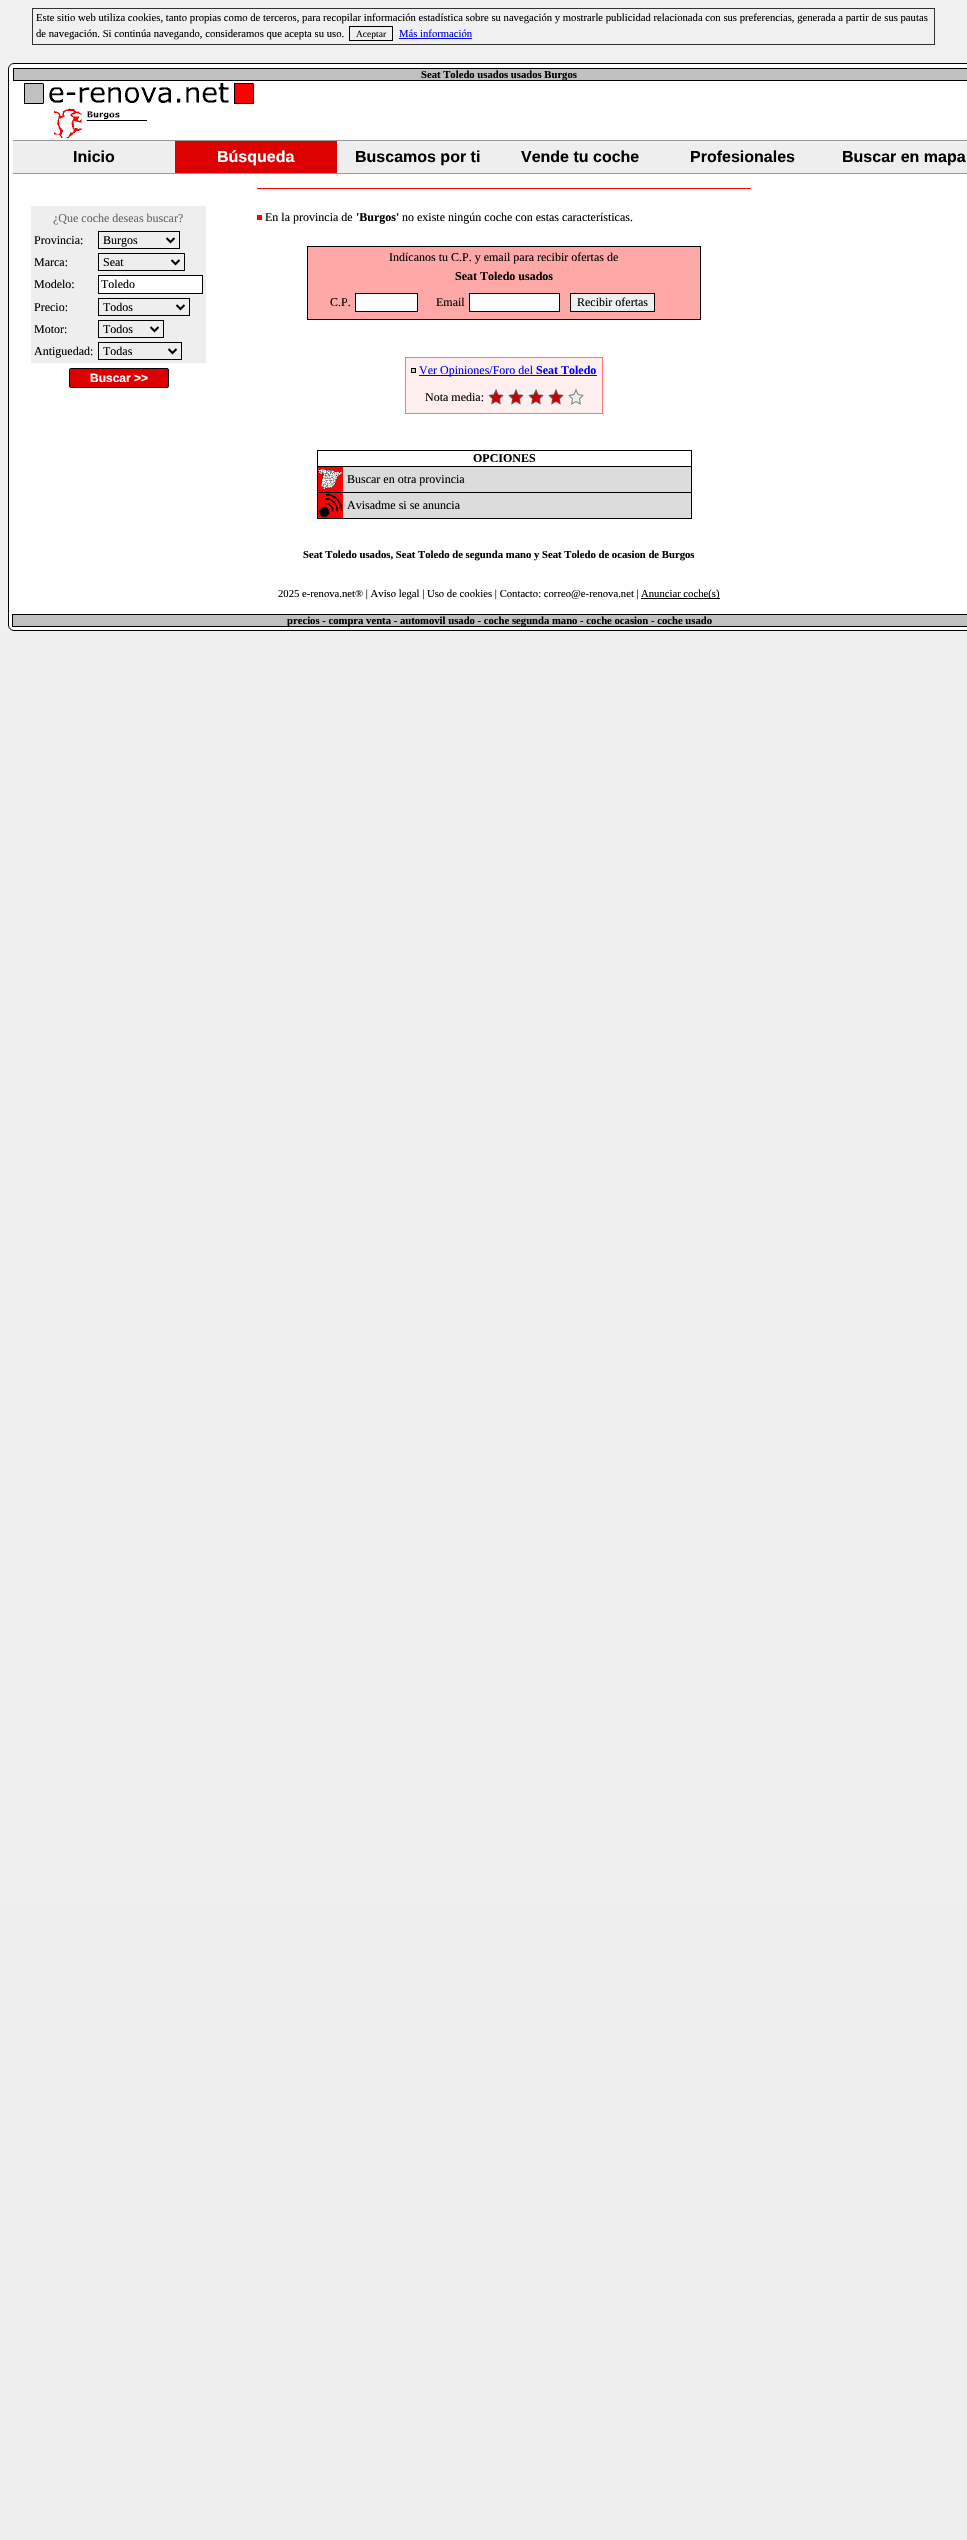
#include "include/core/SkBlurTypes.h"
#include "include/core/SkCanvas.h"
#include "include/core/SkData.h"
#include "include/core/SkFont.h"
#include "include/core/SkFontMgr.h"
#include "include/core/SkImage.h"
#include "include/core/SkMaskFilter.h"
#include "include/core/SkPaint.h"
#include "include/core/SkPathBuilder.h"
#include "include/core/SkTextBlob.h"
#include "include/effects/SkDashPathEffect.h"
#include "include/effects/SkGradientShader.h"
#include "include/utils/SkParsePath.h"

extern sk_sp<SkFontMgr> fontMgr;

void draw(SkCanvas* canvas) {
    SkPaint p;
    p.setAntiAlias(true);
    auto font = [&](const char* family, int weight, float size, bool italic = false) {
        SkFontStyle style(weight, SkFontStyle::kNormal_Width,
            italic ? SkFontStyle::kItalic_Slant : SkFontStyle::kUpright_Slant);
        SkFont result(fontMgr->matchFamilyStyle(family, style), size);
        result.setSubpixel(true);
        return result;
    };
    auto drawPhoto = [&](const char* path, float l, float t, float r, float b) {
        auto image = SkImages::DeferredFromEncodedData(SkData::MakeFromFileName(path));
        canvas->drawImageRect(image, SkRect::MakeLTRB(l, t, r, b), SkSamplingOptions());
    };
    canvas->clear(0xFFFFFFFF);
    {
        const SkColor colors[] = {0xFFF0F0F0, 0xFFEEEEEE};
        const float stops[] = {0, 1};
        const SkPoint ends[] = {{483, 0}, {484, 2540}};
        p.setShader(SkGradientShader::MakeLinear(ends, colors, stops, 2, SkTileMode::kClamp));
        p.setAlpha(255);
    }
    canvas->drawRect(SkRect::MakeLTRB(0, 0, 967, 2540), p);
    p.setStyle(SkPaint::kStroke_Style);
    p.setStrokeWidth(1);
    p.setShader(nullptr);
    p.setColor(0xFF333333);
    canvas->drawRect(SkRect::MakeLTRB(32.5f, 8.5f, 934.5f, 44.5f), p);
    auto font1 = font("Liberation Serif", 400, 10.67f);
    p.setStyle(SkPaint::kFill_Style);
    p.setColor(0xFF000000);
    canvas->drawString("Este sitio web utiliza cookies, tanto propias como de terceros, para recopilar información estadística sobre su navegación y mostrarle publicidad relacionada con sus preferencias, generada a partir de sus pautas", 36, 21, font1, p);
    canvas->drawString("de navegación. Si continúa navegando, consideramos que acepta su uso.", 36, 37, font1, p);
    p.setStyle(SkPaint::kStroke_Style);
    canvas->drawRect(SkRect::MakeLTRB(349.5f, 26.5f, 392.5f, 40.5f), p);
    auto font2 = font("Liberation Serif", 400, 9.5f);
    p.setStyle(SkPaint::kFill_Style);
    canvas->drawString("Aceptar", 356, 37, font2, p);
    p.setColor(0xFF0000EE);
    canvas->drawString("Más información", 399, 37, font1, p);
    canvas->drawRect(SkRect::MakeLTRB(399, 38, 472, 39), p);
    p.setColor(0xFFFFFFFF);
    canvas->drawRoundRect(SkRect::MakeLTRB(8.5f, 63.5f, 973.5f, 630.5f), 5.5f, 5.5f, p);
    p.setStyle(SkPaint::kStroke_Style);
    p.setColor(0xFF000000);
    canvas->drawRoundRect(SkRect::MakeLTRB(8.5f, 63.5f, 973.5f, 630.5f), 5.5f, 5.5f, p);
    p.setStyle(SkPaint::kFill_Style);
    canvas->drawRect(SkRect::MakeLTRB(13, 68, 967, 81), p);
    p.setColor(0xFFC0C0C0);
    canvas->drawRect(SkRect::MakeLTRB(14, 69, 967, 80), p);
    auto font3 = font("Liberation Serif", 700, 10.67f);
    p.setColor(0xFF000000);
    canvas->drawString("Seat Toledo usados usados Burgos", 421, 78, font3, p);
    drawPhoto("media/1.png", 24, 83, 254, 138);
    {
        const struct { float l, t, r, b; SkColor color; } items[] = {
            {13, 141, 967, 173, 0xFFEEEEEE},
            {13, 140, 967, 141, 0xFF999999},
            {13, 173, 967, 174, 0xFF999999},
        };
        for (auto [l, t, r, b, color] : items) {
            p.setColor(color);
            canvas->drawRect(SkRect::MakeLTRB(l, t, r, b), p);
        }
    }
    auto font4 = font("Liberation Sans", 700, 16);
    p.setColor(0xFF000000);
    canvas->drawString("Inicio", 73, 162, font4, p);
    p.setColor(0xFFDD0000);
    canvas->drawRect(SkRect::MakeLTRB(175, 141, 337, 173), p);
    p.setColor(0xFFFFFFFF);
    canvas->drawString("Búsqueda", 217, 162, font4, p);
    p.setColor(0xFF000000);
    {
        const struct { const char* s; float x, y; } items[] = {
            {"Buscamos por ti", 355, 162},
            {"Vende tu coche", 521, 162},
            {"Profesionales", 690, 162},
            {"Buscar en mapa", 842, 162},
        };
        for (auto [s, x, y] : items) {
            canvas->drawString(s, x, y, font4, p);
        }
    }
    p.setColor(0xFFEEEEEE);
    canvas->drawRect(SkRect::MakeLTRB(31, 206, 206, 363), p);
    auto font5 = font("Liberation Serif", 400, 12);
    p.setColor(0xFF666666);
    canvas->drawString("¿Que coche deseas buscar?", 53, 222, font5, p);
    p.setColor(0xFF000000);
    canvas->drawString("Provincia:", 34, 244, font5, p);
    p.setStyle(SkPaint::kStroke_Style);
    canvas->drawRect(SkRect::MakeLTRB(98.5f, 231.5f, 179.5f, 248.5f), p);
    p.setStrokeWidth(2);
    canvas->drawPath(SkPathBuilder().moveTo(166.5f, 238).lineTo(170.5f, 242).lineTo(174.5f, 238).detach(), p);
    p.setStyle(SkPaint::kFill_Style);
    canvas->drawString("Burgos", 103, 244, font5, p);
    canvas->drawString("Marca:", 34, 266, font5, p);
    p.setStyle(SkPaint::kStroke_Style);
    p.setStrokeWidth(1);
    canvas->drawRect(SkRect::MakeLTRB(98.5f, 253.5f, 184.5f, 270.5f), p);
    p.setStrokeWidth(2);
    canvas->drawPath(SkPathBuilder().moveTo(171.5f, 260).lineTo(175.5f, 264).lineTo(179.5f, 260).detach(), p);
    p.setStyle(SkPaint::kFill_Style);
    canvas->drawString("Seat", 103, 266, font5, p);
    canvas->drawString("Modelo:", 34, 288, font5, p);
    p.setColor(0xFFFFFFFF);
    canvas->drawRect(SkRect::MakeLTRB(98.5f, 275.5f, 202.5f, 293.5f), p);
    p.setStyle(SkPaint::kStroke_Style);
    p.setStrokeWidth(1);
    p.setColor(0xFF000000);
    canvas->drawRect(SkRect::MakeLTRB(98.5f, 275.5f, 202.5f, 293.5f), p);
    p.setStyle(SkPaint::kFill_Style);
    canvas->drawString("Toledo", 101, 288, font5, p);
    canvas->drawString("Precio:", 34, 311, font5, p);
    p.setStyle(SkPaint::kStroke_Style);
    canvas->drawRect(SkRect::MakeLTRB(98.5f, 298.5f, 189.5f, 315.5f), p);
    p.setStrokeWidth(2);
    canvas->drawPath(SkPathBuilder().moveTo(176.5f, 305).lineTo(180.5f, 309).lineTo(184.5f, 305).detach(), p);
    p.setStyle(SkPaint::kFill_Style);
    canvas->drawString("Todos", 103, 311, font5, p);
    canvas->drawString("Motor:", 34, 333, font5, p);
    p.setStyle(SkPaint::kStroke_Style);
    p.setStrokeWidth(1);
    canvas->drawRect(SkRect::MakeLTRB(98.5f, 320.5f, 163.5f, 337.5f), p);
    p.setStrokeWidth(2);
    canvas->drawPath(SkPathBuilder().moveTo(150.5f, 327).lineTo(154.5f, 331).lineTo(158.5f, 327).detach(), p);
    p.setStyle(SkPaint::kFill_Style);
    canvas->drawString("Todos", 103, 333, font5, p);
    canvas->drawString("Antiguedad:", 34, 355, font5, p);
    p.setStyle(SkPaint::kStroke_Style);
    p.setStrokeWidth(1);
    canvas->drawRect(SkRect::MakeLTRB(98.5f, 342.5f, 181.5f, 359.5f), p);
    p.setStrokeWidth(2);
    canvas->drawPath(SkPathBuilder().moveTo(168.5f, 349).lineTo(172.5f, 353).lineTo(176.5f, 349).detach(), p);
    p.setStyle(SkPaint::kFill_Style);
    canvas->drawString("Todas", 103, 355, font5, p);
    p.setColor(0xFFDD0000);
    canvas->drawRoundRect(SkRect::MakeLTRB(69.5f, 368.5f, 168.5f, 387.5f), 1.5f, 1.5f, p);
    p.setStyle(SkPaint::kStroke_Style);
    p.setStrokeWidth(1);
    p.setColor(0xFF000000);
    canvas->drawRoundRect(SkRect::MakeLTRB(69.5f, 368.5f, 168.5f, 387.5f), 1.5f, 1.5f, p);
    auto font6 = font("Liberation Sans", 700, 12);
    p.setStyle(SkPaint::kFill_Style);
    p.setColor(0xFFFFFFFF);
    canvas->drawString("Buscar >>", 90, 382, font6, p);
    p.setColor(0xFFFF0000);
    canvas->drawRect(SkRect::MakeLTRB(257, 188, 751, 189), p);
    canvas->drawRect(SkRect::MakeLTRB(257, 215, 262, 220), p);
    p.setColor(0xFF000000);
    canvas->drawString("En la provincia de", 265, 221, font5, p);
    auto font7 = font("Liberation Serif", 700, 12);
    canvas->drawString("'Burgos'", 356, 221, font7, p);
    canvas->drawString("no existe ningún coche con estas características.", 402, 221, font5, p);
    p.setColor(0xFFFFA8A8);
    canvas->drawRect(SkRect::MakeLTRB(307.5f, 246.5f, 700.5f, 319.5f), p);
    p.setStyle(SkPaint::kStroke_Style);
    p.setColor(0xFF000000);
    canvas->drawRect(SkRect::MakeLTRB(307.5f, 246.5f, 700.5f, 319.5f), p);
    p.setStyle(SkPaint::kFill_Style);
    canvas->drawString("Indícanos tu C.P. y email para recibir ofertas de", 389, 261, font5, p);
    canvas->drawString("Seat Toledo usados", 455, 280, font7, p);
    canvas->drawString("C.P.", 330, 306, font5, p);
    p.setColor(0xFFFFFFFF);
    canvas->drawRect(SkRect::MakeLTRB(355.5f, 293.5f, 417.5f, 311.5f), p);
    p.setStyle(SkPaint::kStroke_Style);
    p.setColor(0xFF000000);
    canvas->drawRect(SkRect::MakeLTRB(355.5f, 293.5f, 417.5f, 311.5f), p);
    p.setStyle(SkPaint::kFill_Style);
    canvas->drawString("Email", 436, 306, font5, p);
    p.setColor(0xFFFFFFFF);
    canvas->drawRect(SkRect::MakeLTRB(469.5f, 293.5f, 559.5f, 311.5f), p);
    p.setStyle(SkPaint::kStroke_Style);
    p.setColor(0xFF000000);
    canvas->drawRect(SkRect::MakeLTRB(469.5f, 293.5f, 559.5f, 311.5f), p);
    p.setStyle(SkPaint::kFill_Style);
    p.setColor(0xFFEFEFEF);
    canvas->drawRect(SkRect::MakeLTRB(570.5f, 293.5f, 654.5f, 311.5f), p);
    p.setStyle(SkPaint::kStroke_Style);
    p.setColor(0xFF000000);
    canvas->drawRect(SkRect::MakeLTRB(570.5f, 293.5f, 654.5f, 311.5f), p);
    p.setStyle(SkPaint::kFill_Style);
    canvas->drawString("Recibir ofertas", 577, 306, font5, p);
    p.setColor(0xFFFFEEEE);
    canvas->drawRect(SkRect::MakeLTRB(405.5f, 357.5f, 602.5f, 413.5f), p);
    p.setStyle(SkPaint::kStroke_Style);
    p.setColor(0xFFFF7777);
    canvas->drawRect(SkRect::MakeLTRB(405.5f, 357.5f, 602.5f, 413.5f), p);
    drawPhoto("media/2.png", 411, 368, 416, 374);
    p.setStyle(SkPaint::kFill_Style);
    p.setColor(0xFF0000FF);
    canvas->drawRect(SkRect::MakeLTRB(419, 375, 597, 376), p);
    canvas->drawString("Ver Opiniones/Foro del", 419, 374, font5, p);
    canvas->drawString("Seat Toledo", 536, 374, font7, p);
    p.setColor(0xFF000000);
    canvas->drawString("Nota media:", 425, 401, font5, p);
    drawPhoto("media/3.png", 488, 389, 504, 405);
    drawPhoto("media/3.png", 508, 389, 524, 405);
    drawPhoto("media/3.png", 528, 389, 544, 405);
    drawPhoto("media/3.png", 548, 389, 564, 405);
    drawPhoto("media/4.png", 568, 389, 584, 405);
    canvas->drawRect(SkRect::MakeLTRB(317, 450, 692, 519), p);
    p.setColor(0xFFFFFFFF);
    canvas->drawRect(SkRect::MakeLTRB(318, 451, 691, 466), p);
    p.setColor(0xFF000000);
    canvas->drawString("OPCIONES", 473, 462, font7, p);
    p.setColor(0xFFDCDCDC);
    canvas->drawRect(SkRect::MakeLTRB(343, 467, 691, 492), p);
    drawPhoto("media/5.png", 318, 467, 343, 492);
    p.setColor(0xFF000000);
    canvas->drawString("Buscar en otra provincia", 347, 483, font5, p);
    p.setColor(0xFFDCDCDC);
    canvas->drawRect(SkRect::MakeLTRB(343, 493, 691, 518), p);
    drawPhoto("media/6.png", 318, 493, 343, 518);
    p.setColor(0xFF000000);
    canvas->drawString("Avisadme si se anuncia", 347, 509, font5, p);
    auto font8 = font("Liberation Serif", 700, 10.7f);
    canvas->drawString("Seat Toledo usados, Seat Toledo de segunda mano y Seat Toledo de ocasion de Burgos", 303, 558, font8, p);
    canvas->drawString("2025 e-renova.net® | Aviso legal | Uso de cookies | Contacto: correo@e-renova.net |", 278, 597, font1, p);
    canvas->drawRect(SkRect::MakeLTRB(641, 598, 720, 599), p);
    canvas->drawString("Anunciar coche(s)", 641, 597, font1, p);
    canvas->drawRect(SkRect::MakeLTRB(12, 614, 967, 627), p);
    p.setColor(0xFFC0C0C0);
    canvas->drawRect(SkRect::MakeLTRB(13, 615, 967, 626), p);
    p.setColor(0xFF000000);
    canvas->drawString("precios - compra venta - automovil usado - coche segunda mano - coche ocasion - coche usado", 287, 624, font3, p);
}
